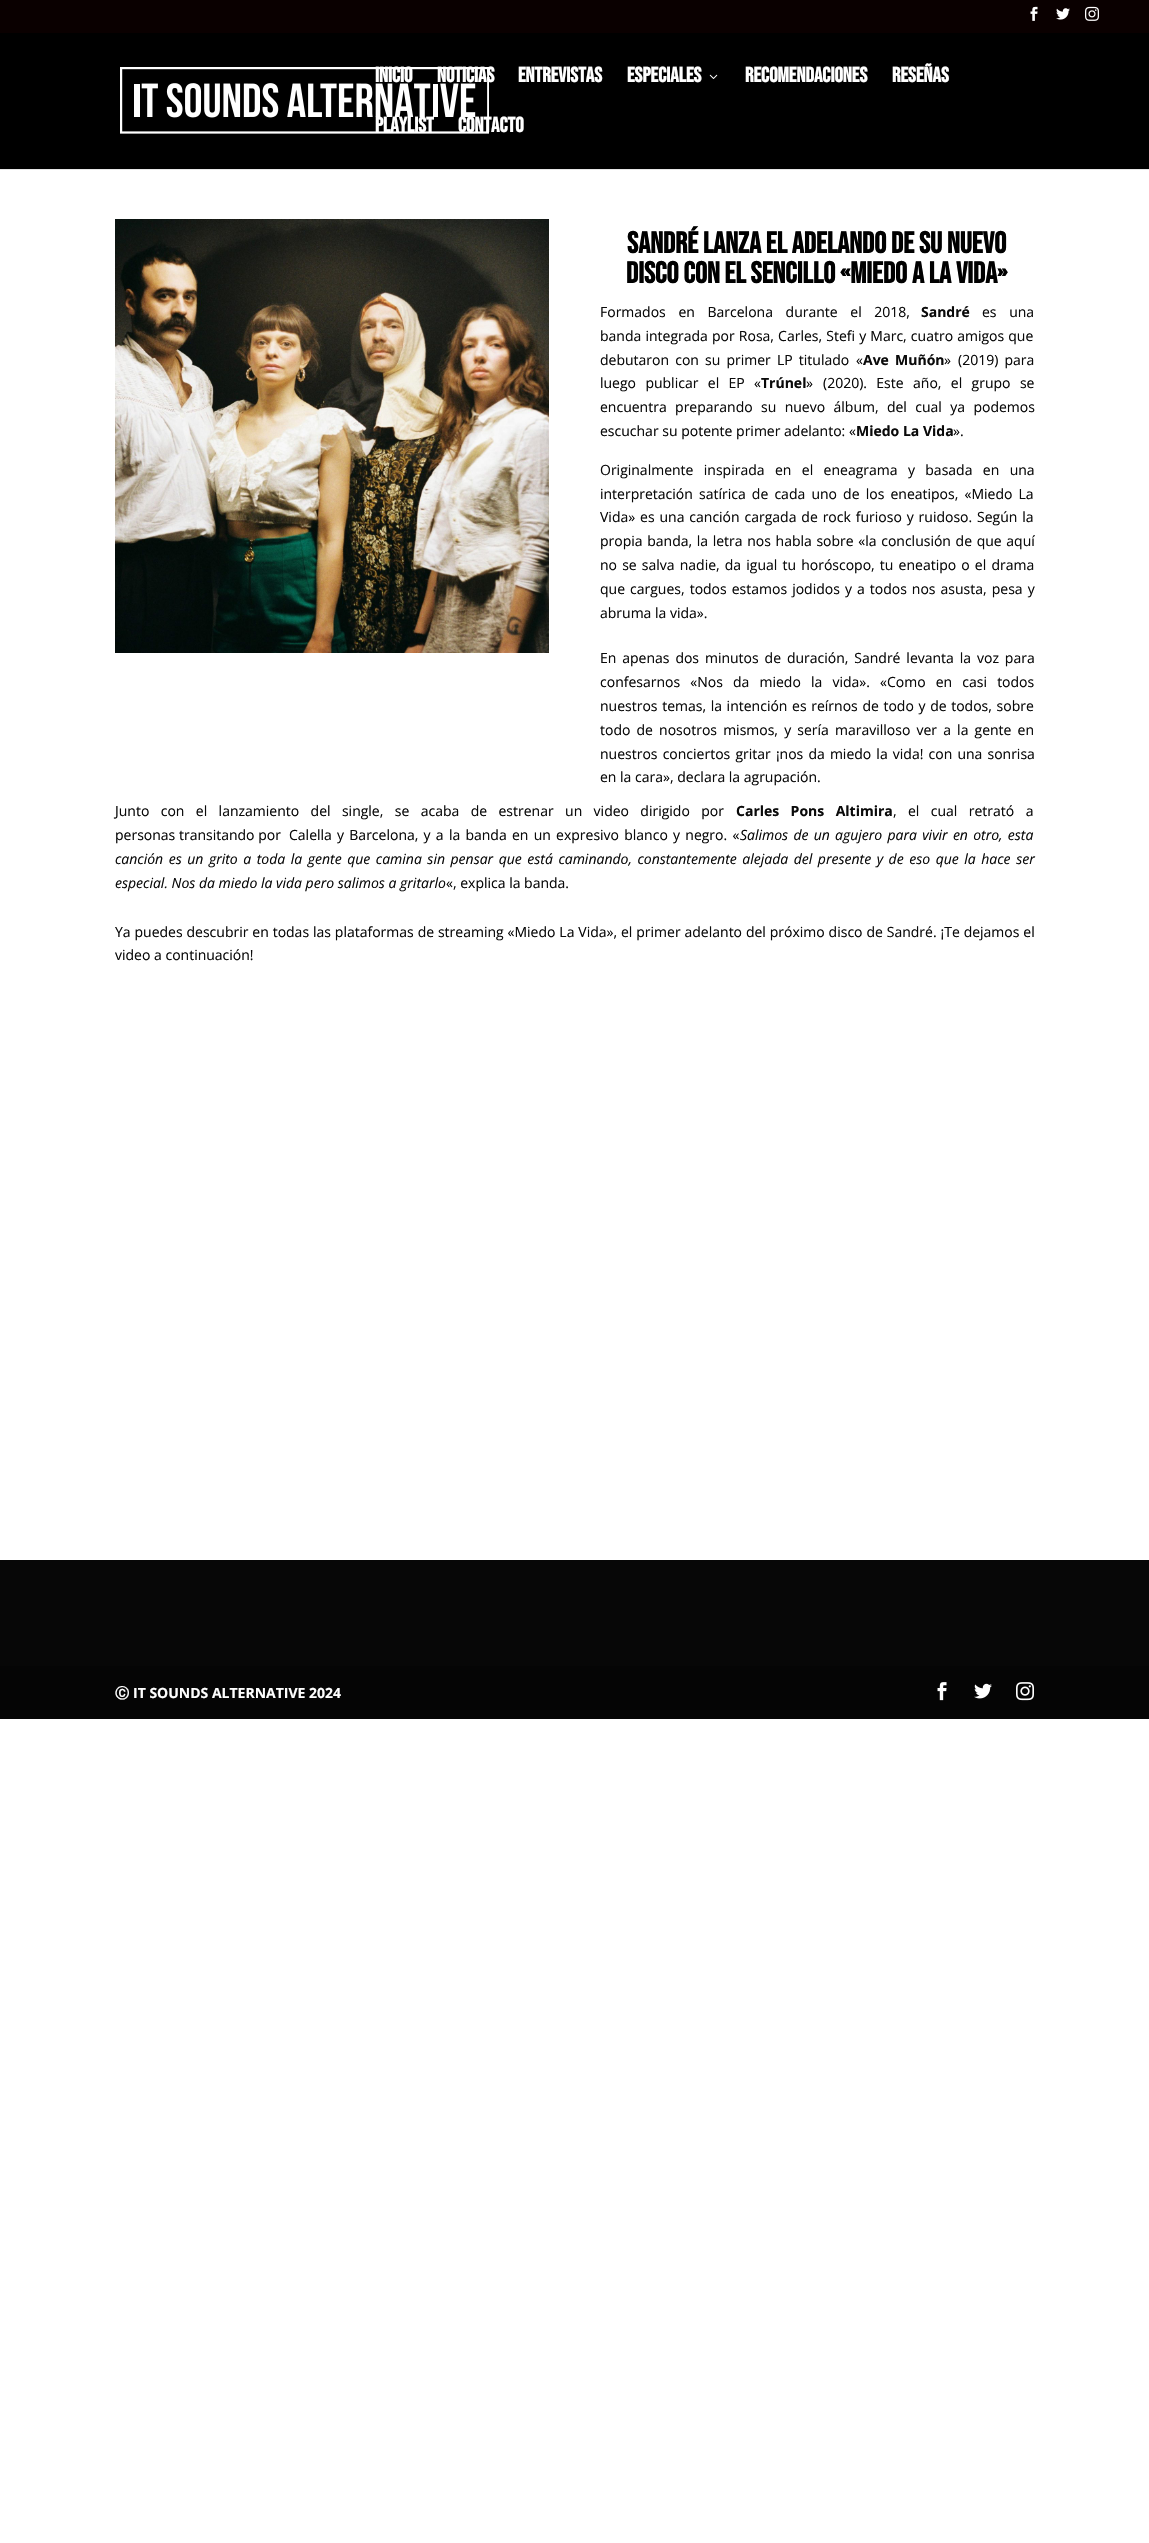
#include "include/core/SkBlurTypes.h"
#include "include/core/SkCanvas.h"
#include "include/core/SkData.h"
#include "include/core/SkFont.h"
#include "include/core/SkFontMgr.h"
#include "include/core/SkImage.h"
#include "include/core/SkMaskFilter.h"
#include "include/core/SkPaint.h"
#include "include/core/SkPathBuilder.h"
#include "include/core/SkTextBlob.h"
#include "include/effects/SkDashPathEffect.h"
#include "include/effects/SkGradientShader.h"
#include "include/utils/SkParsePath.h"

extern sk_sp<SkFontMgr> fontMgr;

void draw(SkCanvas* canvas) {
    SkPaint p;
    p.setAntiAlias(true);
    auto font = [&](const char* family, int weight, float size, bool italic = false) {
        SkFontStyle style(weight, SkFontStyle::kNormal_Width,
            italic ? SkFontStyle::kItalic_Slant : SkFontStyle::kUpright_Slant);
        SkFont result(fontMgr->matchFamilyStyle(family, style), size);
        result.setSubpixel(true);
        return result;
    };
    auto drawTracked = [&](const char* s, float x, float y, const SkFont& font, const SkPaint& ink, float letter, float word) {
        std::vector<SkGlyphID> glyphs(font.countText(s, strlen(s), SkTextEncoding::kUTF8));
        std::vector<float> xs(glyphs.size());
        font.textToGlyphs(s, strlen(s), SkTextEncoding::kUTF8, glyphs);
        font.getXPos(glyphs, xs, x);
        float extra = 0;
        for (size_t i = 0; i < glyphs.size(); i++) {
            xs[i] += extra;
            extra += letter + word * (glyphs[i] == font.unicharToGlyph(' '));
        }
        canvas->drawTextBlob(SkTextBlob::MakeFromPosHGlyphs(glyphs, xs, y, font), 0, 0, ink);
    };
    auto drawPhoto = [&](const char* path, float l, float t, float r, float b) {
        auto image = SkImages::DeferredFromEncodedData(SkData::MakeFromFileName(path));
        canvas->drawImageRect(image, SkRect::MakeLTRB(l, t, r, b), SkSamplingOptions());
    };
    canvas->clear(0xFFFFFFFF);
    p.setColor(0xFF0A0000);
    canvas->drawRect(SkRect::MakeLTRB(0, 0, 1149, 33), p);
    drawPhoto("media/1.png", 1030, 6, 1038, 21);
    drawPhoto("media/2.png", 1056, 8, 1070, 20);
    drawPhoto("media/3.png", 1085, 6, 1099, 21);
    p.setColor(0xFFE6E6E6);
    canvas->drawRect(SkRect::MakeLTRB(0, 169, 1149, 170), p);
    p.setColor(0xFF000000);
    canvas->drawRect(SkRect::MakeLTRB(0, 33, 1149, 169), p);
    drawPhoto("media/4.png", 120, 67, 489, 134);
    auto font1 = font("Bebas Neue", 700, 21);
    p.setColor(0xFFFFFFFF);
    {
        const struct { const char* s; float x, y; } items[] = {
            {"INICIO", 375, 82},
            {"NOTICIAS", 437, 82},
            {"ENTREVISTAS", 518, 82},
            {"ESPECIALES", 627, 82},
        };
        for (auto [s, x, y] : items) {
            canvas->drawString(s, x, y, font1, p);
        }
    }
    drawPhoto("media/5.png", 709, 74, 718, 79);
    {
        const struct { const char* s; float x, y; } items[] = {
            {"RECOMENDACIONES", 745, 82},
            {"RESEÑAS", 892, 82},
            {"PLAYLIST", 375, 132},
            {"CONTACTO", 458, 132},
        };
        for (auto [s, x, y] : items) {
            canvas->drawString(s, x, y, font1, p);
        }
    }
    drawPhoto("media/6.png", 115, 219, 549, 653);
    auto font2 = font("Bebas Neue", 700, 30);
    p.setColor(0xFF000000);
    canvas->drawString("SANDRÉ LANZA EL ADELANDO DE SU NUEVO", 627, 253, font2, p);
    canvas->drawString("DISCO CON EL SENCILLO «MIEDO A LA VIDA»", 626, 283, font2, p);
    auto font3 = font("Open Sans", 400, 14);
    p.setColor(0xFF0A0A0A);
    drawTracked("Formados en Barcelona durante el 2018,", 600, 317, font3, p, 0, 9);
    auto font4 = font("Open Sans", 700, 14);
    canvas->drawString("Sandré", 921, 317, font4, p);
    drawTracked("es una", 982, 317, font3, p, 0, 9);
    drawTracked("banda integrada por Rosa, Carles, Stefi y Marc, cuatro amigos que", 600, 341, font3, p, 0, 0.5f);
    drawTracked("debutaron con su primer LP titulado", 600, 365, font3, p, 0, 2.5f);
    canvas->drawString("«", 856, 365, font3, p);
    drawTracked("Ave Muñón", 863, 365, font4, p, 0, 2.5f);
    canvas->drawString("»", 944, 365, font3, p);
    drawTracked("(2019) para", 958, 365, font3, p, 0, 2.5f);
    drawTracked("luego publicar el EP", 600, 388, font3, p, 0, 5.75f);
    canvas->drawString("«", 754, 388, font3, p);
    canvas->drawString("Trúnel", 761, 388, font4, p);
    canvas->drawString("»", 806, 388, font3, p);
    drawTracked("(2020). Este año, el grupo se", 823, 388, font3, p, 0, 5.75f);
    drawTracked("encuentra preparando su nuevo álbum, del cual ya podemos", 600, 412, font3, p, 0, 4.75f);
    canvas->drawString("escuchar su potente primer adelanto: «", 600, 436, font3, p);
    canvas->drawString("Miedo La Vida", 856, 436, font4, p);
    canvas->drawString("».", 953, 436, font3, p);
    drawTracked("Originalmente inspirada en el eneagrama y basada en una", 600, 475, font3, p, 0, 6.75f);
    drawTracked("interpretación satírica de cada uno de los eneatipos, «Miedo La", 600, 499, font3, p, 0, 2.5f);
    drawTracked("Vida» es una canción cargada de rock furioso y ruidoso. Según la", 600, 522, font3, p, 0, 1.25f);
    drawTracked("propia banda, la letra nos habla sobre «la conclusión de que aquí", 600, 546, font3, p, 0, 1);
    drawTracked("no se salva nadie, da igual tu horóscopo, tu eneatipo o el drama", 600, 570, font3, p, 0, 1.5f);
    drawTracked("que cargues, todos estamos jodidos y a todos nos asusta, pesa y", 600, 594, font3, p, 0, 1.4f);
    canvas->drawString("abruma la vida».", 600, 618, font3, p);
    drawTracked("En apenas dos minutos de duración, Sandré levanta la voz para", 600, 663, font3, p, 0, 2.25f);
    drawTracked("confesarnos «Nos da miedo la vida». «Como en casi todos", 600, 687, font3, p, 0, 6.5f);
    drawTracked("nuestros temas, la intención es reírnos de todo y de todos, sobre", 600, 711, font3, p, 0, 1);
    drawTracked("todo de nosotros mismos, y sería maravilloso ver a la gente en", 600, 735, font3, p, 0, 2.5f);
    drawTracked("nuestros conciertos gritar ¡nos da miedo la vida! con una sonrisa", 600, 759, font3, p, 0, 1.5f);
    canvas->drawString("en la cara», declara la agrupación.", 600, 782, font3, p);
    drawTracked("Junto con el lanzamiento del single, se acaba de estrenar un video dirigido por", 115, 816, font3, p, 0, 7.75f);
    drawTracked("Carles Pons Altimira", 736, 816, font4, p, 0, 7.75f);
    drawTracked(", el cual retrató a", 893, 816, font3, p, 0, 7.75f);
    canvas->drawString("personas transitando por", 115, 840, font3, p);
    drawTracked("Calella y Barcelona, y a la banda en un expresivo blanco y negro. «", 289, 840, font3, p, 0, 1.6f);
    auto font5 = font("Open Sans", 400, 14, true);
    drawTracked("Salimos de un agujero para vivir en otro, esta", 740, 840, font5, p, 0, 1.6f);
    drawTracked("canción es un grito a toda la gente que camina sin pensar que está caminando, constantemente alejada del presente y de eso que la hace ser", 115, 864, font5, p, 0, 1.9f);
    canvas->drawString("especial. Nos da miedo la vida pero salimos a gritarlo", 115, 888, font5, p);
    canvas->drawString("«, explica la banda.", 446, 888, font3, p);
    drawTracked("Ya puedes descubrir en todas las plataformas de streaming «Miedo La Vida», el primer adelanto del próximo disco de Sandré. ¡Te dejamos el", 115, 937, font3, p, 0, 0.25f);
    canvas->drawString("video a continuación!", 115, 960, font3, p);
    p.setColor(0xFF070707);
    canvas->drawRect(SkRect::MakeLTRB(0, 1560, 1149, 1666), p);
    p.setColor(0xFF050505);
    canvas->drawRect(SkRect::MakeLTRB(0, 1666, 1149, 1719), p);
    auto font6 = font("WenQuanYi Zen Hei", 700, 14);
    p.setColor(0xFFFFFFFF);
    canvas->drawString("Ⓒ", 115, 1698, font6, p);
    canvas->drawString("IT SOUNDS ALTERNATIVE 2024", 133, 1698, font4, p);
    drawPhoto("media/7.png", 937, 1682, 947, 1701);
    drawPhoto("media/8.png", 974, 1683, 992, 1699);
    drawPhoto("media/9.png", 1016, 1682, 1034, 1701);
}
